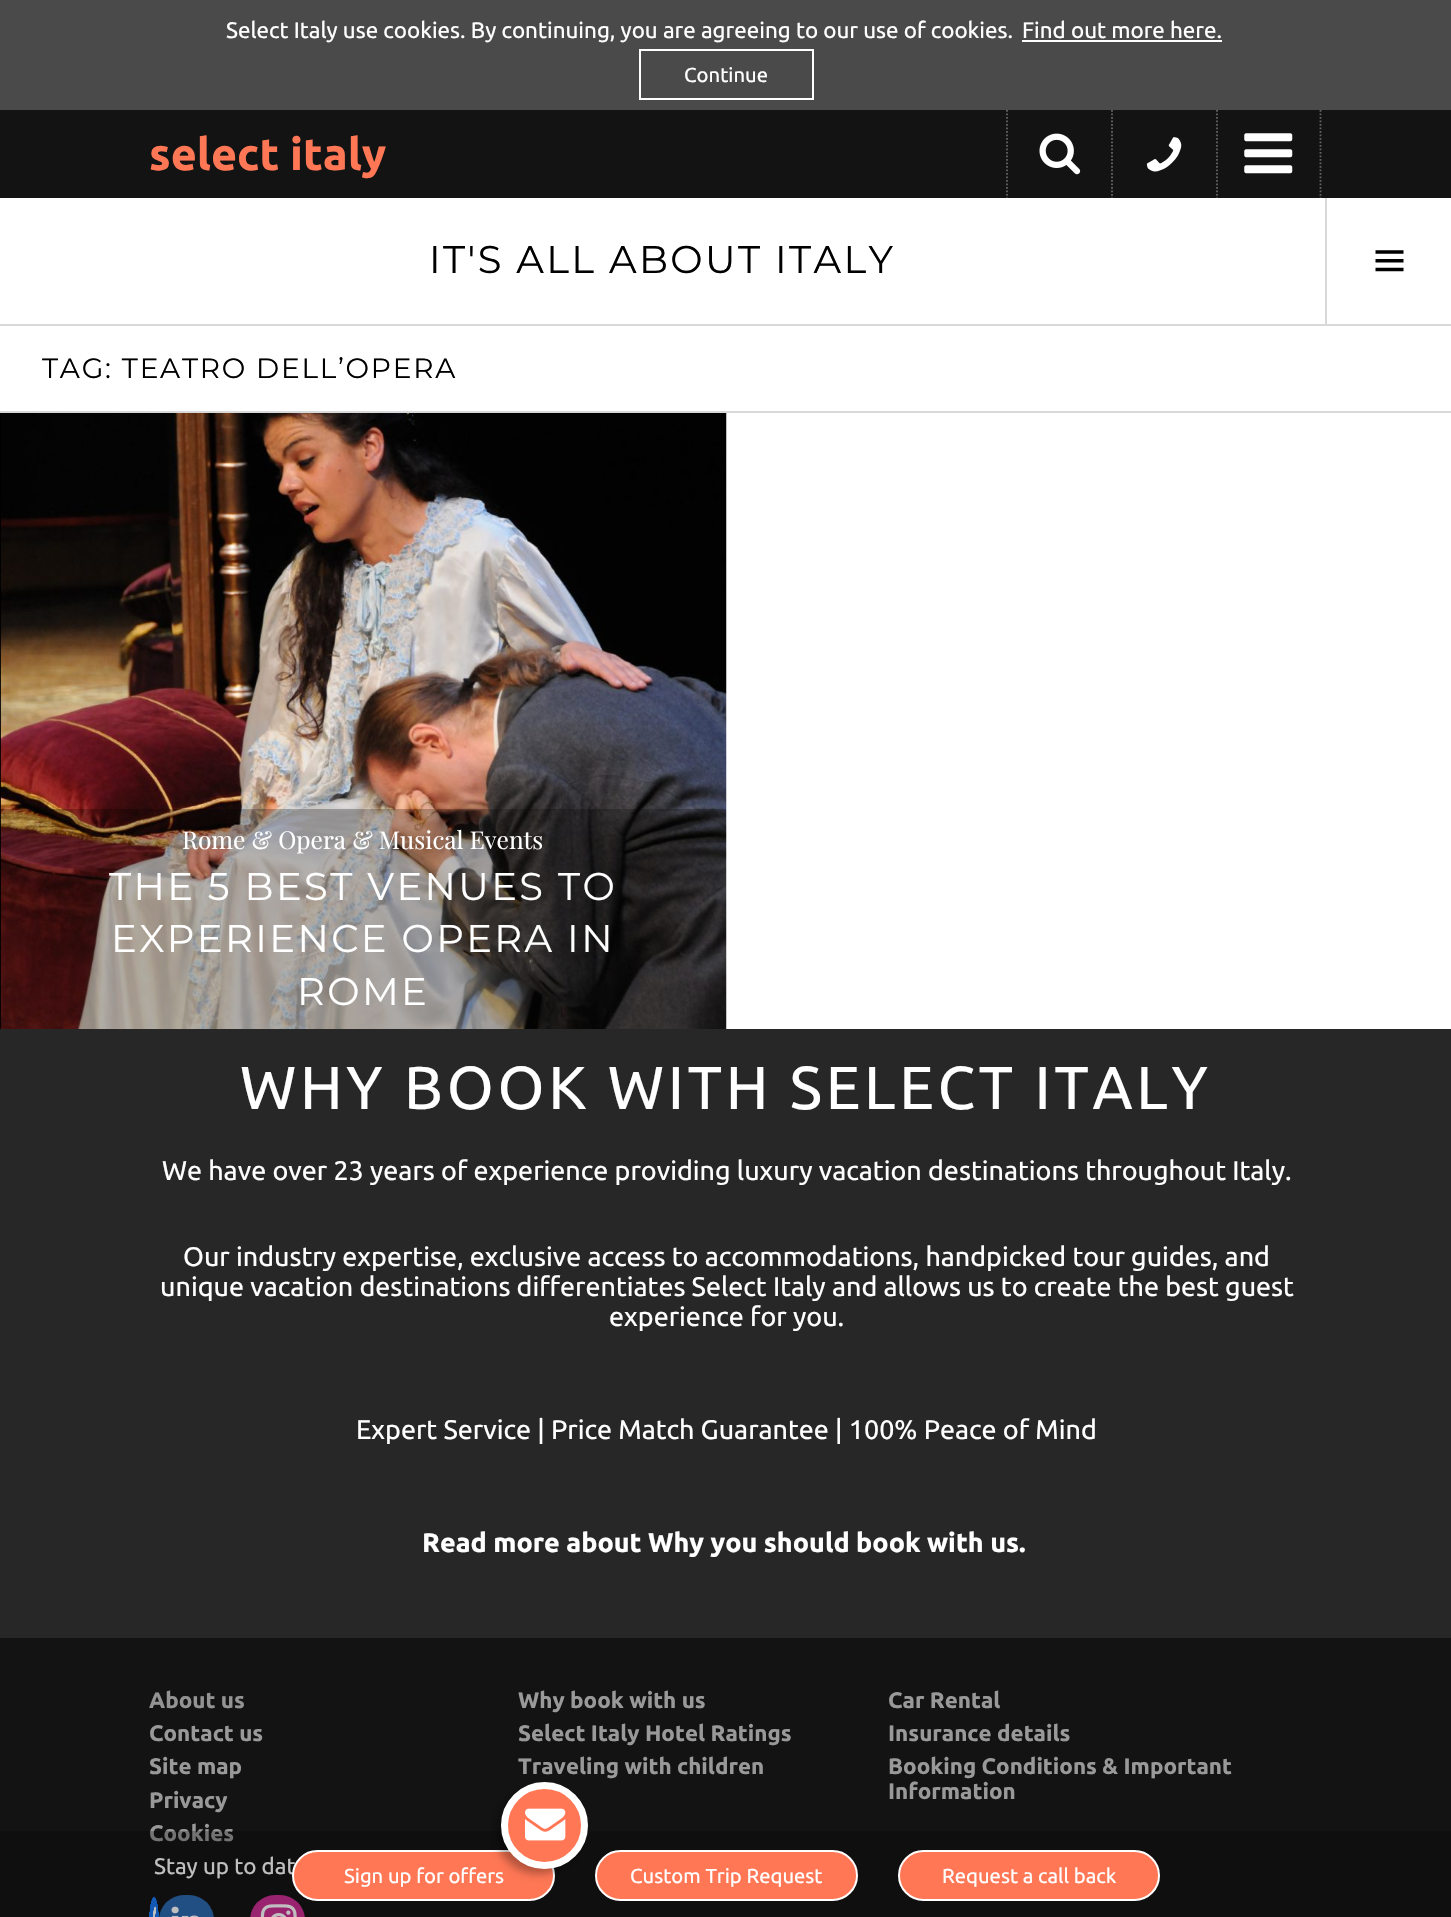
#include "include/core/SkBlurTypes.h"
#include "include/core/SkCanvas.h"
#include "include/core/SkData.h"
#include "include/core/SkFont.h"
#include "include/core/SkFontMgr.h"
#include "include/core/SkImage.h"
#include "include/core/SkMaskFilter.h"
#include "include/core/SkPaint.h"
#include "include/core/SkPathBuilder.h"
#include "include/core/SkTextBlob.h"
#include "include/effects/SkDashPathEffect.h"
#include "include/effects/SkGradientShader.h"
#include "include/utils/SkParsePath.h"

extern sk_sp<SkFontMgr> fontMgr;

void draw(SkCanvas* canvas) {
    SkPaint p;
    p.setAntiAlias(true);
    auto font = [&](const char* family, int weight, float size, bool italic = false) {
        SkFontStyle style(weight, SkFontStyle::kNormal_Width,
            italic ? SkFontStyle::kItalic_Slant : SkFontStyle::kUpright_Slant);
        SkFont result(fontMgr->matchFamilyStyle(family, style), size);
        result.setSubpixel(true);
        return result;
    };
    auto drawTracked = [&](const char* s, float x, float y, const SkFont& font, const SkPaint& ink, float letter, float word) {
        std::vector<SkGlyphID> glyphs(font.countText(s, strlen(s), SkTextEncoding::kUTF8));
        std::vector<float> xs(glyphs.size());
        font.textToGlyphs(s, strlen(s), SkTextEncoding::kUTF8, glyphs);
        font.getXPos(glyphs, xs, x);
        float extra = 0;
        for (size_t i = 0; i < glyphs.size(); i++) {
            xs[i] += extra;
            extra += letter + word * (glyphs[i] == font.unicharToGlyph(' '));
        }
        canvas->drawTextBlob(SkTextBlob::MakeFromPosHGlyphs(glyphs, xs, y, font), 0, 0, ink);
    };
    auto drawPhoto = [&](const char* path, float l, float t, float r, float b) {
        auto image = SkImages::DeferredFromEncodedData(SkData::MakeFromFileName(path));
        canvas->drawImageRect(image, SkRect::MakeLTRB(l, t, r, b), SkSamplingOptions());
    };
    canvas->clear(0xFFFFFFFF);
    p.setColor(0xFF4A4A4A);
    canvas->drawRect(SkRect::MakeLTRB(0, 0, 1451, 110), p);
    auto font1 = font("Ubuntu", 400, 22.4f);
    p.setColor(0xFFFFFFFF);
    canvas->drawString("Select Italy use cookies. By continuing, you are agreeing to our use of cookies.", 226, 38, font1, p);
    canvas->drawString("Find out more here.", 1022, 38, font1, p);
    canvas->drawRect(SkRect::MakeLTRB(1022, 40, 1222, 42), p);
    p.setStyle(SkPaint::kStroke_Style);
    p.setStrokeWidth(2);
    canvas->drawRect(SkRect::MakeLTRB(640, 50, 813, 99), p);
    auto font2 = font("Ubuntu", 400, 20.25f);
    p.setStyle(SkPaint::kFill_Style);
    canvas->drawString("Continue", 684, 82, font2, p);
    p.setColor(0xFF131313);
    canvas->drawRect(SkRect::MakeLTRB(0, 110, 1451, 198), p);
    auto font3 = font("Ubuntu", 700, 44.75f);
    p.setColor(0xFFFF7755);
    canvas->drawString("select italy", 149, 170, font3, p);
    p.setStyle(SkPaint::kStroke_Style);
    p.setStrokeWidth(1.8f);
    p.setColor(0xFF636364);
    p.setPathEffect(SkDashPathEffect::Make({{1.75f, 1.75f}}, 0));
    canvas->drawPath(SkPathBuilder().moveTo(1007, 110).lineTo(1007, 198).detach(), p);
    p.setPathEffect(nullptr);
    drawPhoto("media/1.png", 1039, 133, 1081, 175);
    p.setPathEffect(SkDashPathEffect::Make({{1.75f, 1.75f}}, 0));
    canvas->drawPath(SkPathBuilder().moveTo(1112, 110).lineTo(1112, 198).detach(), p);
    p.setPathEffect(nullptr);
    drawPhoto("media/2.png", 1146, 137, 1182, 172);
    p.setPathEffect(SkDashPathEffect::Make({{1.75f, 1.75f}}, 0));
    canvas->drawPath(SkPathBuilder().moveTo(1320.5f, 110).lineTo(1320.5f, 198).detach(), p);
    p.setPathEffect(nullptr);
    p.setPathEffect(SkDashPathEffect::Make({{1.75f, 1.75f}}, 0));
    canvas->drawPath(SkPathBuilder().moveTo(1217, 110).lineTo(1217, 198).detach(), p);
    p.setPathEffect(nullptr);
    drawPhoto("media/3.png", 1244, 133, 1293, 174);
    p.setStyle(SkPaint::kFill_Style);
    p.setColor(0xFFD9D9D9);
    canvas->drawRect(SkRect::MakeLTRB(0, 324, 1451, 326), p);
    auto font4 = font("Montserrat", 400, 38.5f);
    p.setColor(0xFF000000);
    drawTracked("IT'S ALL ABOUT ITALY", 429, 273, font4, p, 2.4f, 0);
    p.setColor(0xFFD9D9D9);
    canvas->drawRect(SkRect::MakeLTRB(1325, 198, 1327, 324), p);
    drawPhoto("media/4.png", 1375, 250, 1404, 272);
    canvas->drawRect(SkRect::MakeLTRB(0, 411, 1451, 413), p);
    auto font5 = font("Montserrat", 400, 28);
    p.setColor(0xFF000000);
    drawTracked("TAG: TEATRO DELL’OPERA", 42, 378, font5, p, 1.75f, 0);
    canvas->drawRect(SkRect::MakeLTRB(0, 413, 1, 1029), p);
    drawPhoto("media/5.png", 0, 413, 727, 1029);
    p.setColor(0x40000000);
    canvas->drawRect(SkRect::MakeLTRB(0, 809, 726, 1029), p);
    auto font6 = font("Playfair Display", 400, 24.5f);
    p.setColor(0xFFFFFFFF);
    canvas->drawString("Rome & Opera & Musical Events", 182, 849, font6, p);
    {
        const struct { const char* s; float x, y; } items[] = {
            {"THE 5 BEST VENUES TO", 109, 900},
            {"EXPERIENCE OPERA IN", 111, 952},
            {"ROME", 297, 1005},
        };
        for (auto [s, x, y] : items) {
            drawTracked(s, x, y, font4, p, 2.4f, 0);
        }
    }
    p.setColor(0xFF272727);
    canvas->drawRect(SkRect::MakeLTRB(0, 1029, 1451, 1638), p);
    auto font7 = font("Ubuntu", 400, 60.5f);
    p.setColor(0xFFFFFFFF);
    drawTracked("WHY BOOK WITH SELECT ITALY", 240, 1109, font7, p, 3.75f, 0);
    auto font8 = font("Ubuntu", 400, 26.9f);
    {
        const struct { const char* s; float x, y; } items[] = {
            {"We have over 23 years of experience providing luxury vacation destinations throughout Italy.", 162, 1180},
            {"Our industry expertise, exclusive access to accommodations, handpicked tour guides, and", 183, 1266},
            {"unique vacation destinations differentiates Select Italy and allows us to create the best guest", 160, 1296},
            {"experience for you.", 609, 1326},
            {"Expert Service | Price Match Guarantee | 100% Peace of Mind", 356, 1439},
        };
        for (auto [s, x, y] : items) {
            canvas->drawString(s, x, y, font8, p);
        }
    }
    auto font9 = font("Ubuntu", 700, 26.9f);
    canvas->drawString("Read more about Why you should book with us.", 422, 1552, font9, p);
    p.setColor(0xFF131313);
    canvas->drawRect(SkRect::MakeLTRB(0, 1638, 1451, 1917), p);
    auto font10 = font("Ubuntu", 700, 22.4f);
    p.setColor(0xFF939393);
    canvas->drawString("About us", 149, 1708, font10, p);
    p.setColor(0xFF999999);
    {
        const struct { const char* s; float x, y; } items[] = {
            {"Contact us", 149, 1741},
            {"Site map", 149, 1774},
            {"Privacy", 149, 1808},
            {"Cookies", 149, 1841},
        };
        for (auto [s, x, y] : items) {
            canvas->drawString(s, x, y, font10, p);
        }
    }
    p.setColor(0xFFFFFFFF);
    canvas->drawString("Stay up to dat", 154, 1874, font1, p);
    drawPhoto("media/6.png", 149, 1896, 159, 1917);
    p.setColor(0xFF2C69B0);
    canvas->drawRoundRect(SkRect::MakeLTRB(159, 1895, 214, 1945), 27.5f, 27.5f, p);
    drawPhoto("media/7.png", 171, 1906, 199, 1917);
    p.setColor(0xFFCE2E95);
    canvas->drawRoundRect(SkRect::MakeLTRB(250, 1895, 305, 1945), 27.5f, 27.5f, p);
    drawPhoto("media/8.png", 260, 1904, 297, 1917);
    p.setColor(0xFF999999);
    {
        const struct { const char* s; float x, y; } items[] = {
            {"Why book with us", 518, 1708},
            {"Select Italy Hotel Ratings", 518, 1741},
            {"Traveling with children", 518, 1774},
            {"Car Rental", 888, 1708},
            {"Insurance details", 888, 1741},
            {"Booking Conditions & Important", 888, 1774},
            {"Information", 888, 1799},
        };
        for (auto [s, x, y] : items) {
            canvas->drawString(s, x, y, font10, p);
        }
    }
    p.setColor(0x40000000);
    canvas->drawRect(SkRect::MakeLTRB(0, 1831, 1451, 1917), p);
    p.setColor(0xFFFF7755);
    canvas->drawRoundRect(SkRect::MakeLTRB(293, 1851, 554, 1900), 24.5f, 24.5f, p);
    p.setStyle(SkPaint::kStroke_Style);
    p.setStrokeWidth(2);
    p.setColor(0xFFFFFFFF);
    canvas->drawRoundRect(SkRect::MakeLTRB(293, 1851, 554, 1900), 24.5f, 24.5f, p);
    p.setStyle(SkPaint::kFill_Style);
    canvas->drawString("Sign up for offers", 344, 1883, font2, p);
    p.setColor(0x4D000000);
    p.setMaskFilter(SkMaskFilter::MakeBlur(kNormal_SkBlurStyle, 4.5f));
    canvas->drawRoundRect(SkRect::MakeLTRB(495, 1787, 583, 1874), 43.5f, 43.5f, p);
    p.setMaskFilter(nullptr);
    p.setColor(0xFFFF7755);
    canvas->drawCircle(544.5f, 1825.5f, 40, p);
    p.setStyle(SkPaint::kStroke_Style);
    p.setStrokeWidth(7);
    p.setColor(0xFFFFFFFF);
    canvas->drawCircle(544.5f, 1825.5f, 40, p);
    drawPhoto("media/9.png", 525, 1808, 566, 1841);
    p.setStyle(SkPaint::kFill_Style);
    p.setColor(0xFFFF7755);
    canvas->drawRoundRect(SkRect::MakeLTRB(596, 1851, 857, 1900), 24.5f, 24.5f, p);
    p.setStyle(SkPaint::kStroke_Style);
    p.setStrokeWidth(2);
    p.setColor(0xFFFFFFFF);
    canvas->drawRoundRect(SkRect::MakeLTRB(596, 1851, 857, 1900), 24.5f, 24.5f, p);
    p.setStyle(SkPaint::kFill_Style);
    canvas->drawString("Custom Trip Request", 630, 1883, font2, p);
    p.setColor(0xFFFF7755);
    canvas->drawRoundRect(SkRect::MakeLTRB(899, 1851, 1159, 1900), 24.5f, 24.5f, p);
    p.setStyle(SkPaint::kStroke_Style);
    p.setColor(0xFFFFFFFF);
    canvas->drawRoundRect(SkRect::MakeLTRB(899, 1851, 1159, 1900), 24.5f, 24.5f, p);
    p.setStyle(SkPaint::kFill_Style);
    canvas->drawString("Request a call back", 942, 1883, font2, p);
}
